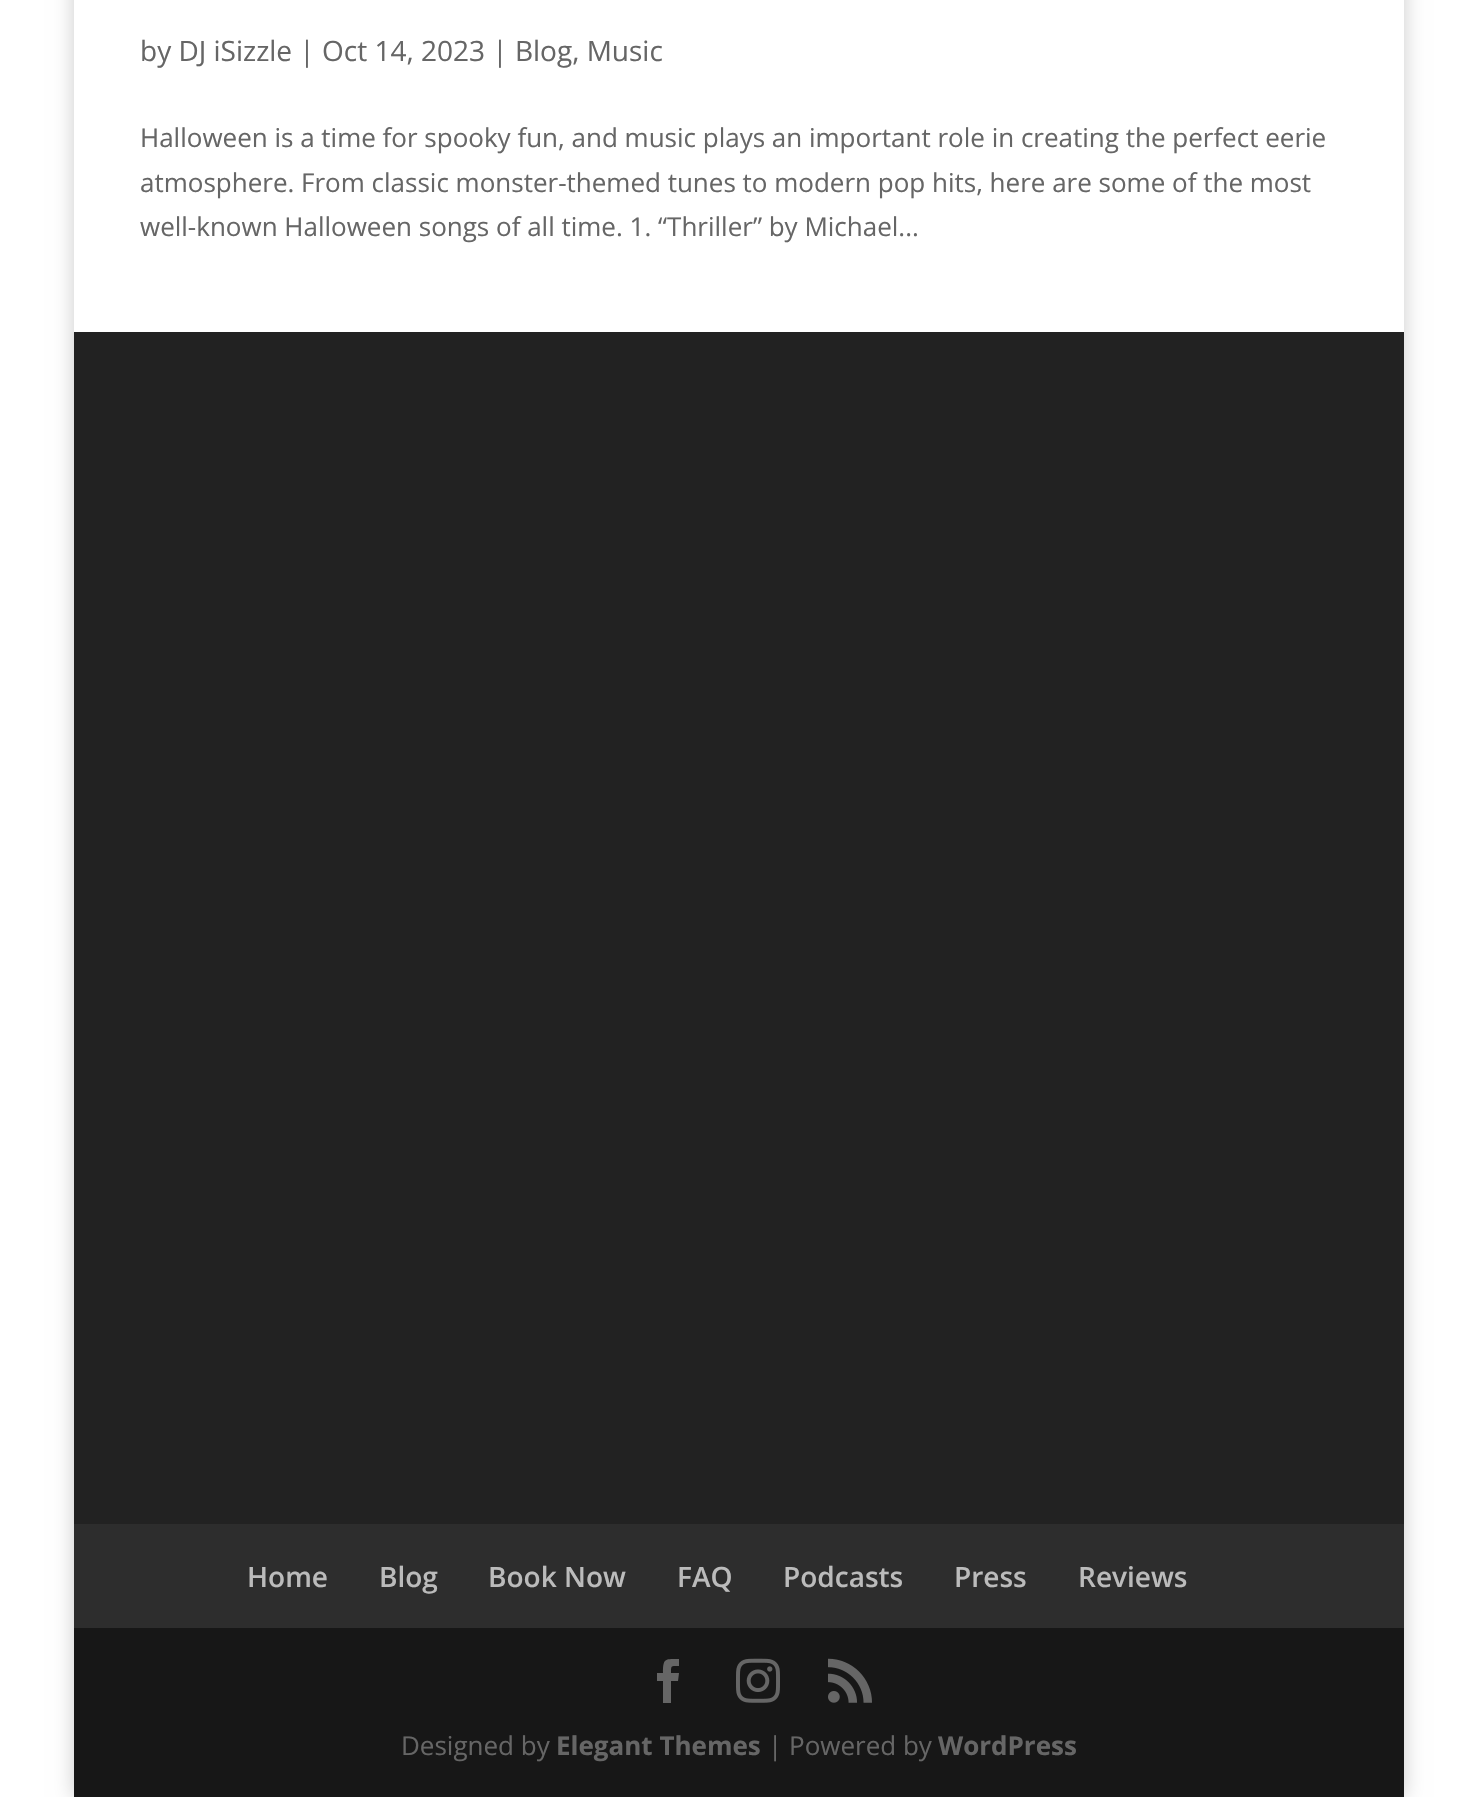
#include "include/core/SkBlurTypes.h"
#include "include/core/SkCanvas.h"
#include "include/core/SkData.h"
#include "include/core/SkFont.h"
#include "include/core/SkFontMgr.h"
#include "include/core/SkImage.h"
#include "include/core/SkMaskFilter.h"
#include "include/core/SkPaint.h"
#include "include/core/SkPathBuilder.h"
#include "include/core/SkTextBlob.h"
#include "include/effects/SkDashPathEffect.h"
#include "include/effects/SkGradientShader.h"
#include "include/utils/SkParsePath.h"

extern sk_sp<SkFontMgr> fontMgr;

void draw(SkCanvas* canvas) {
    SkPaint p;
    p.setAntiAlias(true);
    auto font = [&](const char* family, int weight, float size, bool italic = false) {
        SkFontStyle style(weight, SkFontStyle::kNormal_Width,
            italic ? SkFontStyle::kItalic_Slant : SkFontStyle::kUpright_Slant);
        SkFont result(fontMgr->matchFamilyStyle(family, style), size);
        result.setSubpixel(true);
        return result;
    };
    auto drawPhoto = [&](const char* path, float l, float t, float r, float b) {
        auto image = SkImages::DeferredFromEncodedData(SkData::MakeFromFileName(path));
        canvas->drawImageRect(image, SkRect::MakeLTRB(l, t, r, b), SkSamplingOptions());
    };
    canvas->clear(0xFFFFFFFF);
    canvas->save();
    canvas->clipPath(SkPathBuilder(SkPathFillType::kEvenOdd).moveTo(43, 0).lineTo(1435, 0).lineTo(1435, 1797).lineTo(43, 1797).close().moveTo(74, -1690).lineTo(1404, -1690).lineTo(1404, 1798).lineTo(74, 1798).close().detach(), true);
    p.setColor(0x33000000);
    p.setMaskFilter(SkMaskFilter::MakeBlur(kNormal_SkBlurStyle, 10));
    canvas->drawRect(SkRect::MakeLTRB(74, -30, 1404, 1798), p);
    p.setMaskFilter(nullptr);
    canvas->restore();
    auto font1 = font("Open Sans", 400, 28);
    p.setColor(0xFF666666);
    canvas->drawString("by DJ iSizzle | Oct 14, 2023 | Blog, Music", 140, 61, font1, p);
    auto font2 = font("Open Sans", 400, 26);
    {
        const struct { const char* s; float x, y; } items[] = {
            {"Halloween is a time for spooky fun, and music plays an important role in creating the perfect eerie", 140, 147},
            {"atmosphere. From classic monster-themed tunes to modern pop hits, here are some of the most", 140, 192},
            {"well-known Halloween songs of all time. 1. “Thriller” by Michael...", 140, 236},
        };
        for (auto [s, x, y] : items) {
            canvas->drawString(s, x, y, font2, p);
        }
    }
    p.setColor(0xFF222222);
    canvas->drawRect(SkRect::MakeLTRB(74, 332, 1404, 1524), p);
    p.setColor(0xFF2D2D2D);
    canvas->drawRect(SkRect::MakeLTRB(74, 1524, 1404, 1628), p);
    auto font3 = font("Open Sans", 600, 28);
    p.setColor(0xFFBBBBBB);
    {
        const struct { const char* s; float x, y; } items[] = {
            {"Home", 247, 1587},
            {"Blog", 379, 1587},
            {"Book Now", 488, 1587},
            {"FAQ", 677, 1587},
            {"Podcasts", 783, 1587},
            {"Press", 954, 1587},
            {"Reviews", 1078, 1587},
        };
        for (auto [s, x, y] : items) {
            canvas->drawString(s, x, y, font3, p);
        }
    }
    p.setColor(0xFF171717);
    canvas->drawRect(SkRect::MakeLTRB(74, 1628, 1404, 1797), p);
    p.setColor(0xFF666666);
    canvas->drawPath(SkPathBuilder().moveTo(663, 1703).lineTo(671, 1703).lineTo(671, 1681).lineTo(678, 1681).lineTo(679, 1673).lineTo(671, 1673).cubicTo(671, 1665, 671, 1666, 679, 1666).lineTo(679, 1659).cubicTo(665, 1659, 663, 1658, 663, 1673).lineTo(657, 1673).lineTo(657, 1681).lineTo(663, 1681).close().detach(), p);
    drawPhoto("media/1.png", 736, 1658, 780, 1703);
    drawPhoto("media/2.png", 828, 1658, 872, 1703);
    canvas->drawString("Designed by", 401, 1755, font2, p);
    auto font4 = font("Open Sans", 700, 26);
    canvas->drawString("Elegant Themes", 556, 1755, font4, p);
    canvas->drawString("| Powered by", 768, 1755, font2, p);
    canvas->drawString("WordPress", 938, 1755, font4, p);
}
